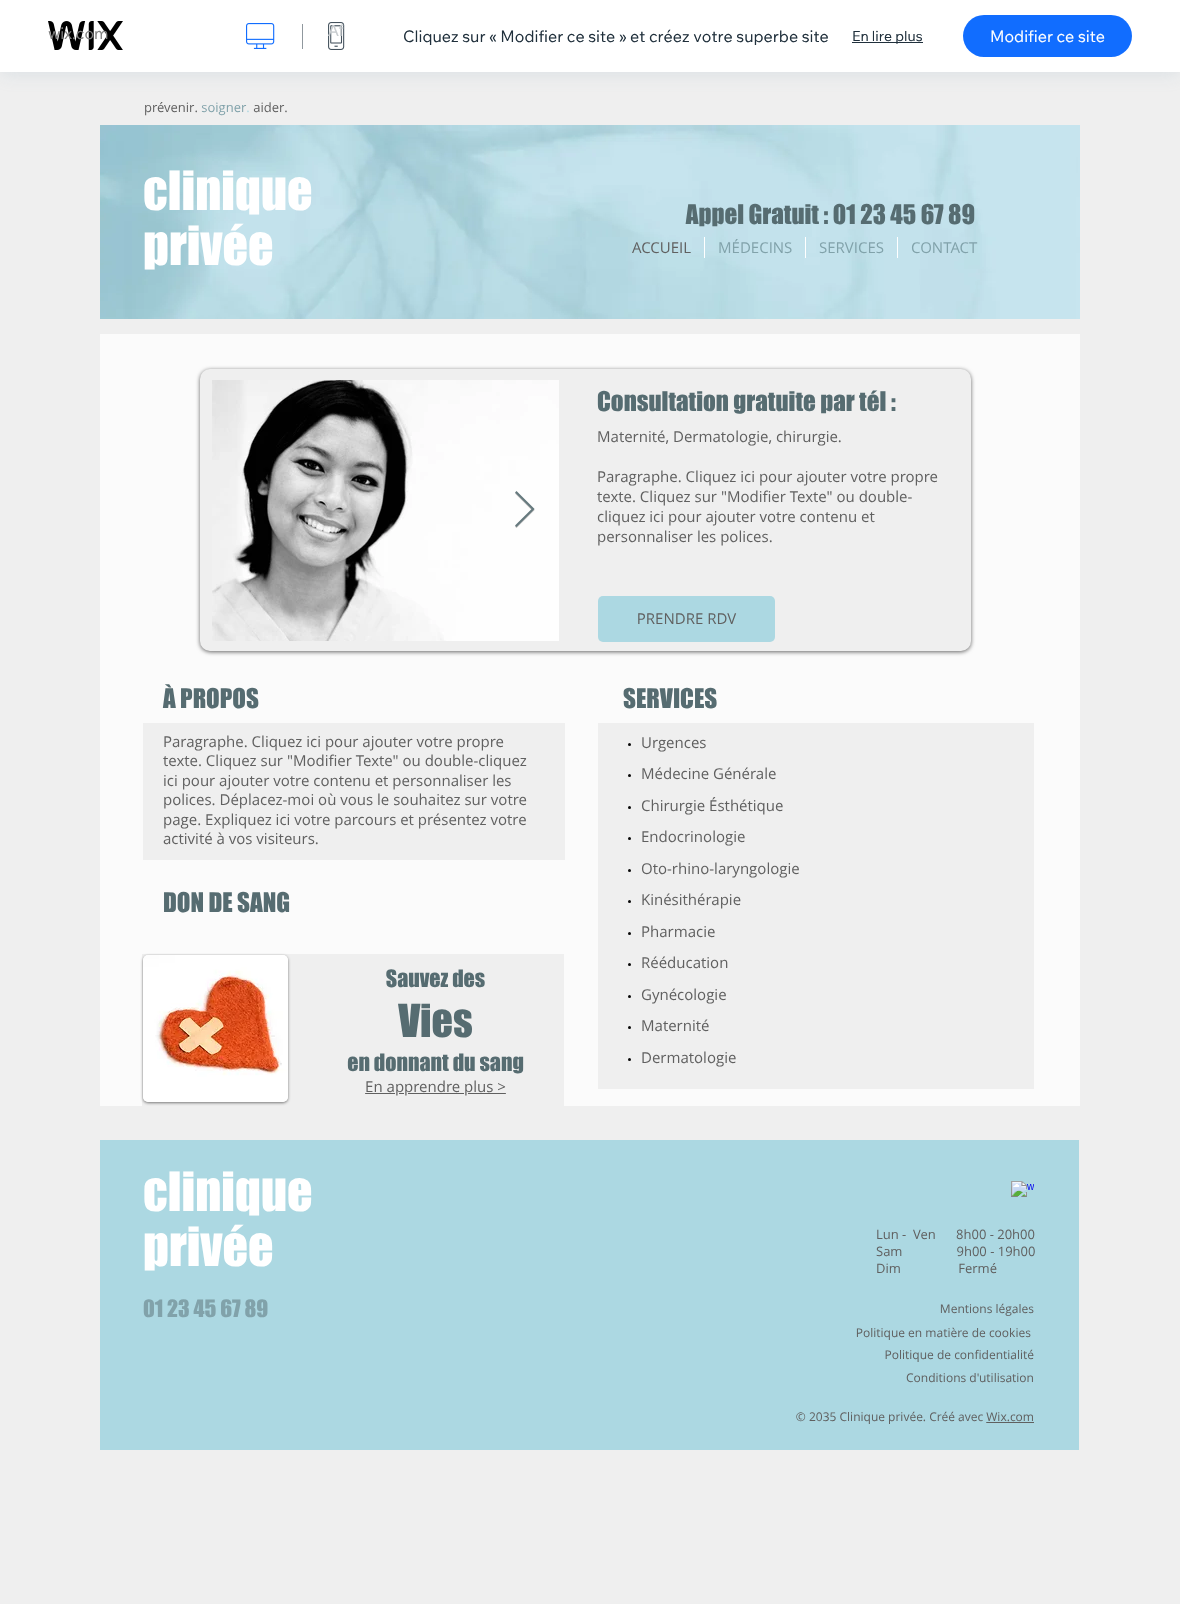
#include "include/core/SkBlurTypes.h"
#include "include/core/SkCanvas.h"
#include "include/core/SkData.h"
#include "include/core/SkFont.h"
#include "include/core/SkFontMgr.h"
#include "include/core/SkImage.h"
#include "include/core/SkMaskFilter.h"
#include "include/core/SkPaint.h"
#include "include/core/SkPathBuilder.h"
#include "include/core/SkTextBlob.h"
#include "include/effects/SkDashPathEffect.h"
#include "include/effects/SkGradientShader.h"
#include "include/utils/SkParsePath.h"

extern sk_sp<SkFontMgr> fontMgr;

void draw(SkCanvas* canvas) {
    SkPaint p;
    p.setAntiAlias(true);
    auto font = [&](const char* family, int weight, float size, bool italic = false) {
        SkFontStyle style(weight, SkFontStyle::kNormal_Width,
            italic ? SkFontStyle::kItalic_Slant : SkFontStyle::kUpright_Slant);
        SkFont result(fontMgr->matchFamilyStyle(family, style), size);
        result.setSubpixel(true);
        return result;
    };
    auto drawPhoto = [&](const char* path, float l, float t, float r, float b) {
        auto image = SkImages::DeferredFromEncodedData(SkData::MakeFromFileName(path));
        canvas->drawImageRect(image, SkRect::MakeLTRB(l, t, r, b), SkSamplingOptions());
    };
    canvas->clear(0xFFFFFFFF);
    drawPhoto("media/4.png", 0, 72, 1180, 1604);
    p.setColor(0x3381A2B6);
    p.setMaskFilter(SkMaskFilter::MakeBlur(kNormal_SkBlurStyle, 9));
    canvas->drawRect(SkRect::MakeLTRB(0, 2, 1180, 74), p);
    p.setMaskFilter(nullptr);
    p.setColor(0xFFFFFFFF);
    canvas->drawRect(SkRect::MakeLTRB(0, 0, 1180, 72), p);
    drawPhoto("media/1.png", 48, 21, 123, 50);
    auto font1 = font("Wix Madefor Text", 400, 16);
    p.setColor(0xFF808080);
    canvas->drawString("wix.com", 48, 39, font1, p);
    drawPhoto("media/2.png", 246, 23, 275, 49);
    p.setColor(0xFF90989E);
    canvas->drawRect(SkRect::MakeLTRB(302, 24, 303, 49), p);
    drawPhoto("media/3.png", 328, 22, 345, 50);
    auto font2 = font("Liberation Sans", 400, 16);
    p.setColor(0xFFC8CCCF);
    canvas->drawString("Af", 328, 36, font2, p);
    p.setColor(0xFF20303C);
    canvas->drawString("Cliquez sur « Modifier ce site » et créez votre superbe site", 403, 42, font1, p);
    canvas->drawRect(SkRect::MakeLTRB(852, 42, 923, 43), p);
    auto font3 = font("Wix Madefor Text", 400, 14);
    canvas->drawString("En lire plus", 852, 41, font3, p);
    p.setColor(0xFF116DFF);
    canvas->drawRoundRect(SkRect::MakeLTRB(963, 15, 1132, 57), 21, 21, p);
    p.setColor(0xFFFFFFFF);
    canvas->drawString("Modifier ce site", 990, 42, font1, p);
}
